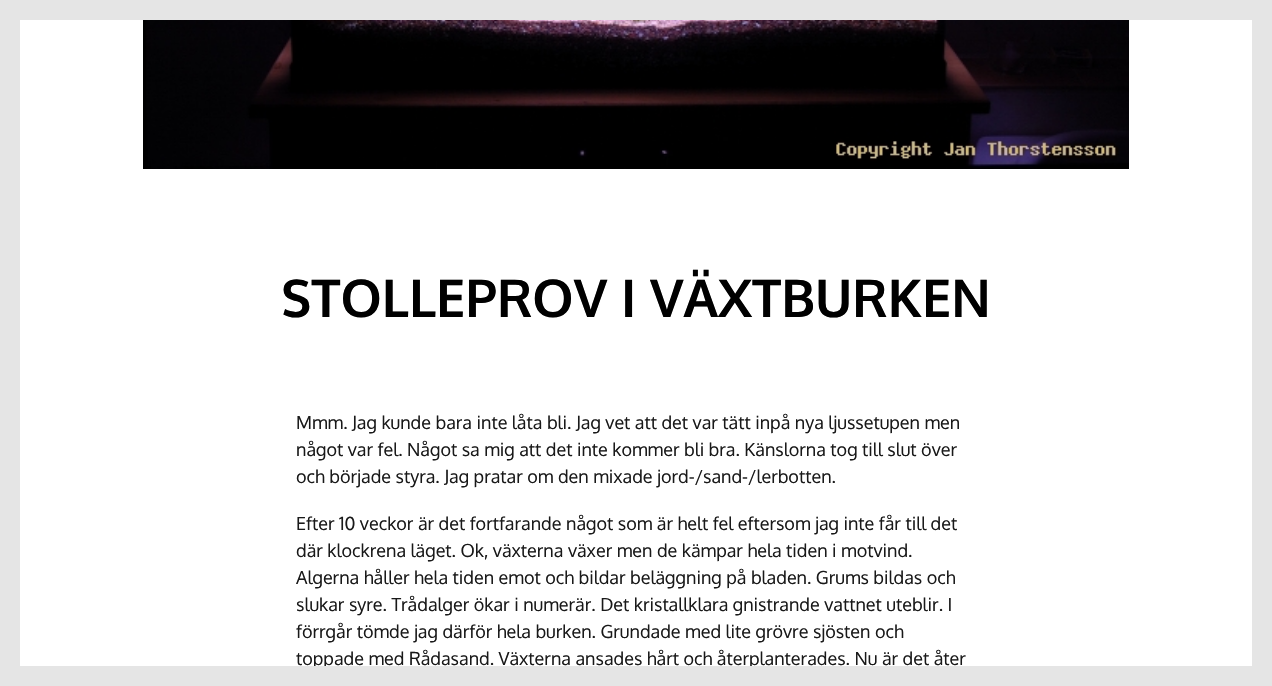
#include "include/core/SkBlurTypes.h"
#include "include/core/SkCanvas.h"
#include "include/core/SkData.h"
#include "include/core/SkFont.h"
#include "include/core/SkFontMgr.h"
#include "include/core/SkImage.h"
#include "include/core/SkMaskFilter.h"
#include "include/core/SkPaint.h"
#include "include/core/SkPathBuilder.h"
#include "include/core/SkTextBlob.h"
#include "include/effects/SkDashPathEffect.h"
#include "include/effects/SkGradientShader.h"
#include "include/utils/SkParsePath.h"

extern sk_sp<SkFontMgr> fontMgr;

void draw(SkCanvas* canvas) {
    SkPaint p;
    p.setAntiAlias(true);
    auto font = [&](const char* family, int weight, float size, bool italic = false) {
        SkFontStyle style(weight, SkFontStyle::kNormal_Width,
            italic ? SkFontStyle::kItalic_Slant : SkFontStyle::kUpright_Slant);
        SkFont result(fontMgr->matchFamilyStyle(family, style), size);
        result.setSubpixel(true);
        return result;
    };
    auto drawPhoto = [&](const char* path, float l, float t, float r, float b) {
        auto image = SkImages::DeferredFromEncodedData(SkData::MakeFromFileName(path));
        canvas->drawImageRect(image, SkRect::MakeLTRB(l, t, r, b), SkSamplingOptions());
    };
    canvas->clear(0xFFFFFFFF);
    {
        const struct { float l, t, r, b; SkColor color; } items[] = {
            {1252, 20, 1272, 666, 0xFFE5E5E5},
            {0, 20, 20, 666, 0xFFE5E5E5},
            {0, 0, 1272, 20, 0xFFE5E5E5},
        };
        for (auto [l, t, r, b, color] : items) {
            p.setColor(color);
            canvas->drawRect(SkRect::MakeLTRB(l, t, r, b), p);
        }
    }
    drawPhoto("media/1.png", 143, 20, 1129, 169);
    auto font1 = font("Oxygen", 700, 52);
    p.setColor(0xFF000000);
    canvas->drawString("STOLLEPROV I VÄXTBURKEN", 281, 317, font1, p);
    auto font2 = font("Oxygen", 400, 18);
    p.setColor(0xFF191919);
    {
        const struct { const char* s; float x, y; } items[] = {
            {"Mmm. Jag kunde bara inte låta bli. Jag vet att det var tätt inpå nya ljussetupen men", 296, 429},
            {"något var fel. Något sa mig att det inte kommer bli bra. Känslorna tog till slut över", 296, 456},
            {"och började styra. Jag pratar om den mixade jord-/sand-/lerbotten.", 296, 483},
            {"Efter 10 veckor är det fortfarande något som är helt fel eftersom jag inte får till det", 296, 530},
            {"där klockrena läget. Ok, växterna växer men de kämpar hela tiden i motvind.", 296, 557},
            {"Algerna håller hela tiden emot och bildar beläggning på bladen. Grums bildas och", 296, 584},
            {"slukar syre. Trådalger ökar i numerär. Det kristallklara gnistrande vattnet uteblir. I", 296, 611},
            {"förrgår tömde jag därför hela burken. Grundade med lite grövre sjösten och", 296, 638},
            {"toppade med Rådasand. Växterna ansades hårt och återplanterades. Nu är det åter", 296, 665},
        };
        for (auto [s, x, y] : items) {
            canvas->drawString(s, x, y, font2, p);
        }
    }
    p.setColor(0xFFE5E5E5);
    canvas->drawRect(SkRect::MakeLTRB(0, 666, 1272, 686), p);
}
